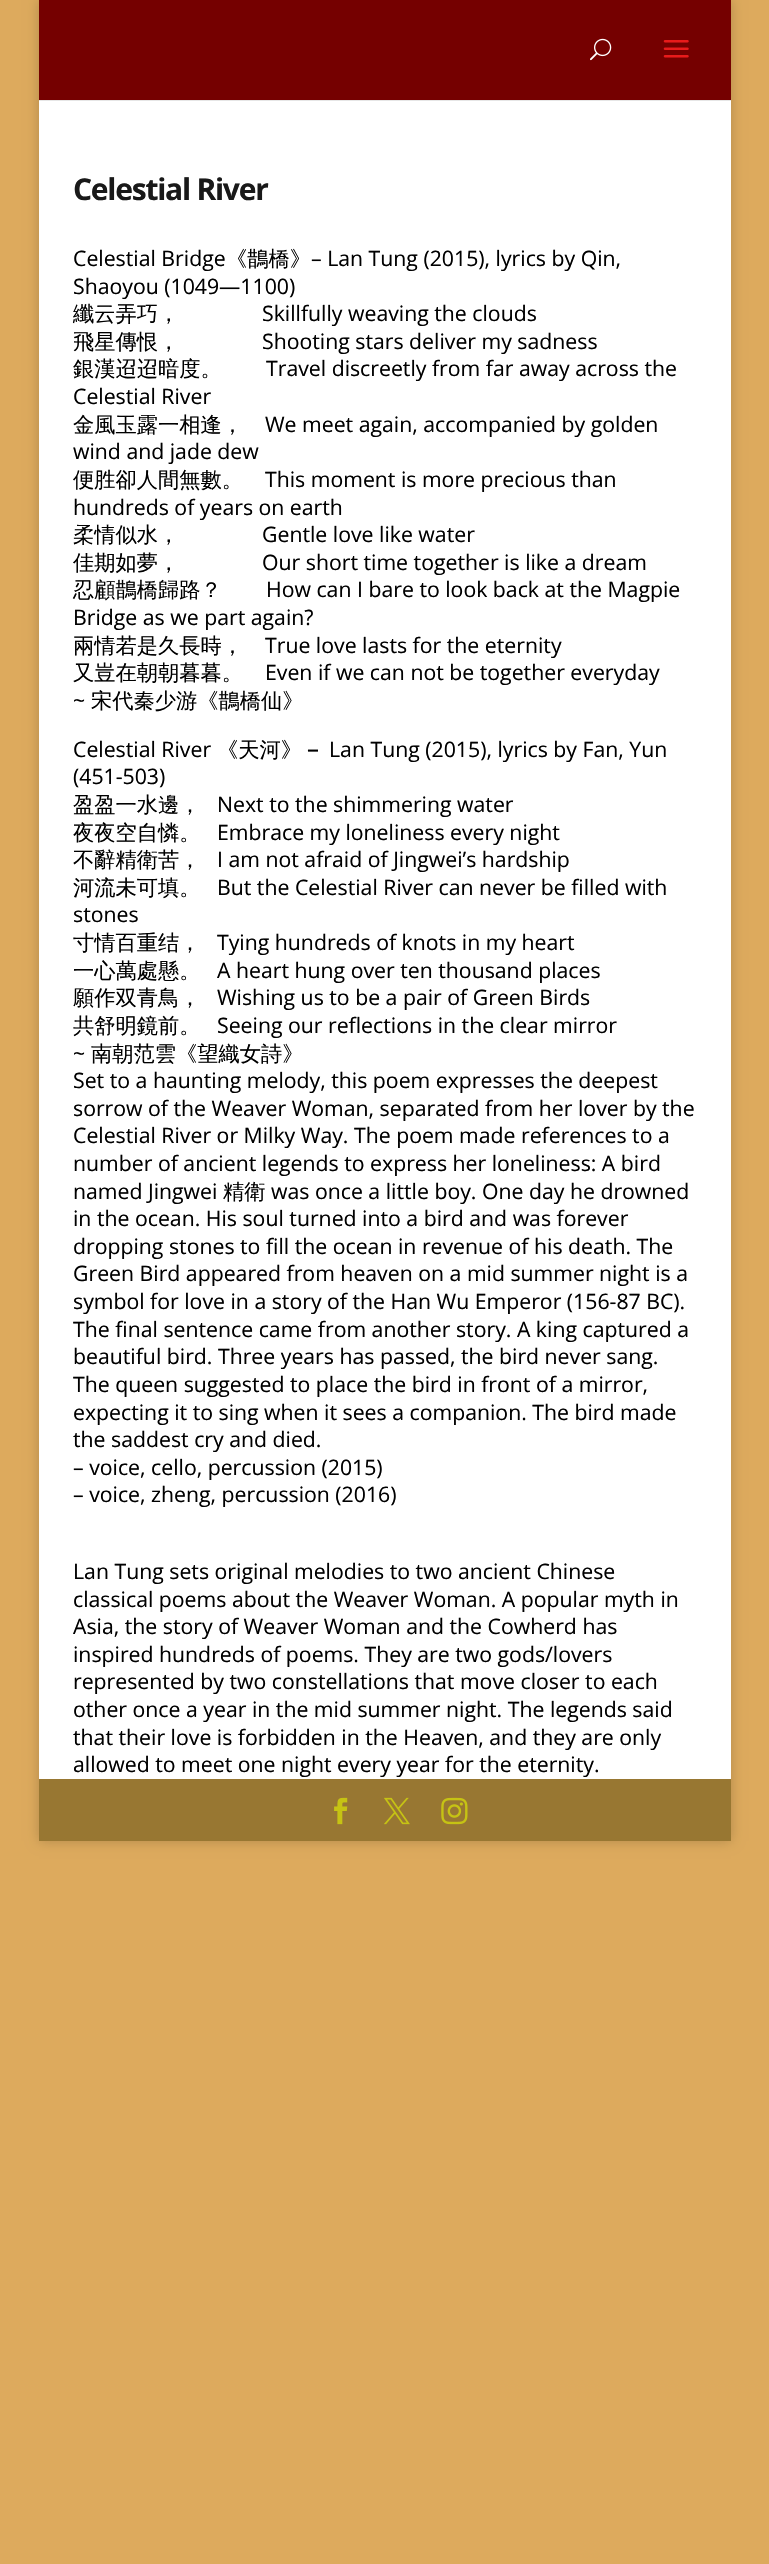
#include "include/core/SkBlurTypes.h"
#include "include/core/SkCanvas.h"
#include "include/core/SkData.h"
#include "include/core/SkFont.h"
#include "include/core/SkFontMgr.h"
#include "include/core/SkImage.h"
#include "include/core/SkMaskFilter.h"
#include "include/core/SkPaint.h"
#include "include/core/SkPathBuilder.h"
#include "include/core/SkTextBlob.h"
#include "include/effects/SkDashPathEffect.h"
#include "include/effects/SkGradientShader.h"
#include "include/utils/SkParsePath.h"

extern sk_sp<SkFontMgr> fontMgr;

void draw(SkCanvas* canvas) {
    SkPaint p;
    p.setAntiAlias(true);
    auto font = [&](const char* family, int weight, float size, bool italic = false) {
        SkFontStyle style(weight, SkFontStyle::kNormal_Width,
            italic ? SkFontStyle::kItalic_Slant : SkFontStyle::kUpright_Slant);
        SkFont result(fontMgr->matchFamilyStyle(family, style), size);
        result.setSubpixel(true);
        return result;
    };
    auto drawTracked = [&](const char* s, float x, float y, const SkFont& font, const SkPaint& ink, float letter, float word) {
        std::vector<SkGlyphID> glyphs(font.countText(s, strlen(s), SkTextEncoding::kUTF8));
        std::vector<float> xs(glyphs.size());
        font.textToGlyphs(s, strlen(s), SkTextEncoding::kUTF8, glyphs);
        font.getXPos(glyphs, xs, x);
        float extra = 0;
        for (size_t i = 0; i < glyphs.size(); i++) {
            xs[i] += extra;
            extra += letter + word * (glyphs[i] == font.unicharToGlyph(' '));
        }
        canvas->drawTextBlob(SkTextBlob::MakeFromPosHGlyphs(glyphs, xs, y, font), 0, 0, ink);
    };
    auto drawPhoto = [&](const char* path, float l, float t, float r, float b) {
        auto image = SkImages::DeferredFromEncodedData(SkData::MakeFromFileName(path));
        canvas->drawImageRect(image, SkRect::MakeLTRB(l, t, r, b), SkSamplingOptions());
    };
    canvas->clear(0xFFDDAA5D);
    p.setColor(0x33000000);
    p.setMaskFilter(SkMaskFilter::MakeBlur(kNormal_SkBlurStyle, 6));
    canvas->drawRect(SkRect::MakeLTRB(39, 0, 731, 1841), p);
    p.setMaskFilter(nullptr);
    p.setColor(0xFFE6E6E6);
    canvas->drawRect(SkRect::MakeLTRB(39, 100, 731, 101), p);
    p.setColor(0xFF750000);
    canvas->drawRect(SkRect::MakeLTRB(39, 0, 731, 100), p);
    drawPhoto("media/1.png", 590, 38, 612, 61);
    drawPhoto("media/2.png", 663, 40, 689, 58);
    p.setColor(0xFFFFFFFF);
    canvas->drawRect(SkRect::MakeLTRB(39, 101, 731, 1779), p);
    auto font1 = font("Open Sans", 700, 30);
    p.setColor(0xFF191919);
    drawTracked("Celestial River", 73, 200, font1, p, -1.25f, 0);
    auto font2 = font("Open Sans", 400, 21.25f);
    p.setColor(0xFF000000);
    canvas->drawString("Celestial Bridge", 73, 266, font2, p);
    auto font3 = font("WenQuanYi Zen Hei", 500, 21.25f);
    canvas->drawString("《鵲橋》", 226, 266, font3, p);
    canvas->drawString("– Lan Tung (2015), lyrics by Qin,", 311, 266, font2, p);
    canvas->drawString("Shaoyou (1049—1100)", 73, 294, font2, p);
    canvas->drawString("纖云弄巧，", 73, 321, font3, p);
    canvas->drawString("Skillfully weaving the clouds", 262, 321, font2, p);
    canvas->drawString("飛星傳恨，", 73, 349, font3, p);
    canvas->drawString("Shooting stars deliver my sadness", 262, 349, font2, p);
    canvas->drawString("銀漢迢迢暗度。", 73, 376, font3, p);
    canvas->drawString("Travel discreetly from far away across the", 266, 376, font2, p);
    canvas->drawString("Celestial River", 73, 404, font2, p);
    canvas->drawString("金風玉露一相逢，", 73, 432, font3, p);
    canvas->drawString("We meet again, accompanied by golden", 265, 432, font2, p);
    canvas->drawString("wind and jade dew", 73, 459, font2, p);
    canvas->drawString("便胜卻人間無數。", 73, 487, font3, p);
    canvas->drawString("This moment is more precious than", 265, 487, font2, p);
    canvas->drawString("hundreds of years on earth", 73, 515, font2, p);
    canvas->drawString("柔情似水，", 73, 542, font3, p);
    canvas->drawString("Gentle love like water", 262, 542, font2, p);
    canvas->drawString("佳期如夢，", 73, 570, font3, p);
    canvas->drawString("Our short time together is like a dream", 262, 570, font2, p);
    canvas->drawString("忍顧鵲橋歸路？", 73, 597, font3, p);
    canvas->drawString("How can I bare to look back at the Magpie", 266, 597, font2, p);
    canvas->drawString("Bridge as we part again?", 73, 625, font2, p);
    canvas->drawString("兩情若是久長時，", 73, 653, font3, p);
    canvas->drawString("True love lasts for the eternity", 265, 653, font2, p);
    canvas->drawString("又豈在朝朝暮暮。", 73, 680, font3, p);
    canvas->drawString("Even if we can not be together everyday", 265, 680, font2, p);
    canvas->drawString("~", 73, 708, font2, p);
    canvas->drawString("宋代秦少游《鵲橋仙》", 91, 708, font3, p);
    canvas->drawString("Celestial River", 73, 757, font2, p);
    canvas->drawString("《天河》", 217, 757, font3, p);
    auto font4 = font("WenQuanYi Zen Hei", 700, 21.25f);
    canvas->drawString("－", 302, 757, font4, p);
    canvas->drawString("Lan Tung (2015), lyrics by Fan, Yun", 329, 757, font2, p);
    canvas->drawString("(451-503)", 73, 784, font2, p);
    canvas->drawString("盈盈一水邊，", 73, 812, font3, p);
    canvas->drawString("Next to the shimmering water", 217, 812, font2, p);
    canvas->drawString("夜夜空自憐。", 73, 840, font3, p);
    canvas->drawString("Embrace my loneliness every night", 217, 840, font2, p);
    canvas->drawString("不辭精衛苦，", 73, 867, font3, p);
    canvas->drawString("I am not afraid of Jingwei’s hardship", 217, 867, font2, p);
    canvas->drawString("河流未可填。", 73, 895, font3, p);
    canvas->drawString("But the Celestial River can never be filled with", 217, 895, font2, p);
    canvas->drawString("stones", 73, 922, font2, p);
    canvas->drawString("寸情百重结，", 73, 950, font3, p);
    canvas->drawString("Tying hundreds of knots in my heart", 217, 950, font2, p);
    canvas->drawString("一心萬處懸。", 73, 978, font3, p);
    canvas->drawString("A heart hung over ten thousand places", 217, 978, font2, p);
    canvas->drawString("願作双青鳥，", 73, 1005, font3, p);
    canvas->drawString("Wishing us to be a pair of Green Birds", 217, 1005, font2, p);
    canvas->drawString("共舒明鏡前。", 73, 1033, font3, p);
    canvas->drawString("Seeing our reflections in the clear mirror", 217, 1033, font2, p);
    canvas->drawString("~", 73, 1061, font2, p);
    canvas->drawString("南朝范雲《望織女詩》", 91, 1061, font3, p);
    {
        const struct { const char* s; float x, y; } items[] = {
            {"Set to a haunting melody, this poem expresses the deepest", 73, 1088},
            {"sorrow of the Weaver Woman, separated from her lover by the", 73, 1116},
            {"Celestial River or Milky Way. The poem made references to a", 73, 1143},
            {"number of ancient legends to express her loneliness: A bird", 73, 1171},
            {"named Jingwei", 73, 1199},
        };
        for (auto [s, x, y] : items) {
            canvas->drawString(s, x, y, font2, p);
        }
    }
    canvas->drawString("精衛", 223, 1199, font3, p);
    {
        const struct { const char* s; float x, y; } items[] = {
            {"was once a little boy. One day he drowned", 271, 1199},
            {"in the ocean. His soul turned into a bird and was forever", 73, 1226},
            {"dropping stones to fill the ocean in revenue of his death. The", 73, 1254},
            {"Green Bird appeared from heaven on a mid summer night is a", 73, 1281},
            {"symbol for love in a story of the Han Wu Emperor (156-87 BC).", 73, 1309},
            {"The final sentence came from another story. A king captured a", 73, 1337},
            {"beautiful bird. Three years has passed, the bird never sang.", 73, 1364},
            {"The queen suggested to place the bird in front of a mirror,", 73, 1392},
            {"expecting it to sing when it sees a companion. The bird made", 73, 1420},
            {"the saddest cry and died.", 73, 1447},
            {"– voice, cello, percussion (2015)", 73, 1475},
            {"– voice, zheng, percussion (2016)", 73, 1502},
            {"Lan Tung sets original melodies to two ancient Chinese", 73, 1579},
            {"classical poems about the Weaver Woman. A popular myth in", 73, 1607},
            {"Asia, the story of Weaver Woman and the Cowherd has", 73, 1634},
            {"inspired hundreds of poems. They are two gods/lovers", 73, 1662},
            {"represented by two constellations that move closer to each", 73, 1689},
            {"other once a year in the mid summer night. The legends said", 73, 1717},
            {"that their love is forbidden in the Heaven, and they are only", 73, 1745},
            {"allowed to meet one night every year for the eternity.", 73, 1772},
        };
        for (auto [s, x, y] : items) {
            canvas->drawString(s, x, y, font2, p);
        }
    }
    p.setColor(0xFF987732);
    canvas->drawRect(SkRect::MakeLTRB(39, 1779, 731, 1841), p);
    drawPhoto("media/3.png", 334, 1797, 348, 1825);
    drawPhoto("media/4.png", 384, 1797, 410, 1825);
    drawPhoto("media/5.png", 441, 1797, 468, 1825);
}
